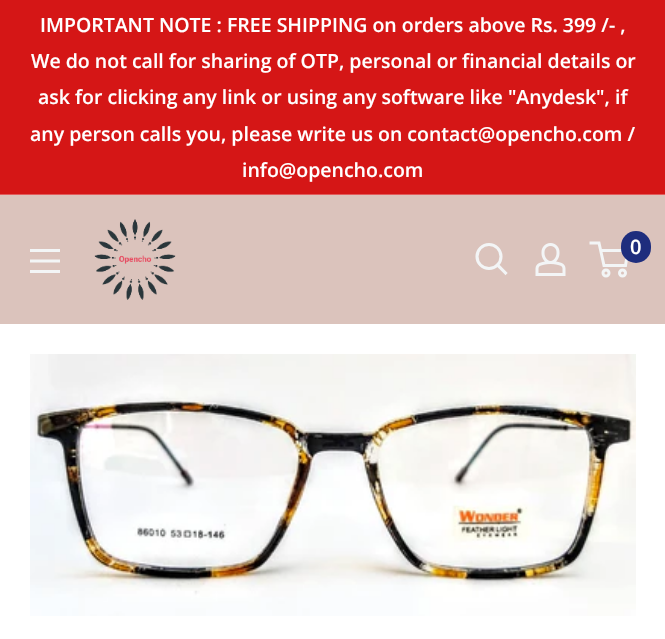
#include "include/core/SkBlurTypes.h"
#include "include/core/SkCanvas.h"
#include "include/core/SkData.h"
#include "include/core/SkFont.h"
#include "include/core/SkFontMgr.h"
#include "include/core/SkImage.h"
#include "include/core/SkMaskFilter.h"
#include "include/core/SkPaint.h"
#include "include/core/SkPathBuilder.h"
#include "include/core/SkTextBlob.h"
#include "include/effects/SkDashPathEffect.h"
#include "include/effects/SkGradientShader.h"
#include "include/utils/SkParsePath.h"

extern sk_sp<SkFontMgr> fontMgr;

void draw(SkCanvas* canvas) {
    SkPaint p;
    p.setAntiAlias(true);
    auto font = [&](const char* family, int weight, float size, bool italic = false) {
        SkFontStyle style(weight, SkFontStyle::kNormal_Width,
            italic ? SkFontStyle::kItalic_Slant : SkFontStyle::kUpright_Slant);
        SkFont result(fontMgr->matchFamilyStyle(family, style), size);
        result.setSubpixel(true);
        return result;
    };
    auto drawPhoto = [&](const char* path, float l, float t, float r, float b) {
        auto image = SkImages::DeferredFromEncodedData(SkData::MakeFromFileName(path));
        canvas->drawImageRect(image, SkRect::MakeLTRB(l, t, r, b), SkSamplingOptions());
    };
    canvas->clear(0xFFD51616);
    p.setColor(0xFFE25C5C);
    canvas->drawRect(SkRect::MakeLTRB(0, 194, 665, 195), p);
    auto font1 = font("Open Sans", 600, 19.5f);
    p.setColor(0xFFFFFFFF);
    {
        const struct { const char* s; float x, y; } items[] = {
            {"IMPORTANT NOTE : FREE SHIPPING on orders above Rs. 399 /- ,", 40, 32},
            {"We do not call for sharing of OTP, personal or financial details or", 31, 68},
            {"ask for clicking any link or using any software like \"Anydesk\", if", 38, 104},
            {"any person calls you, please write us on contact@opencho.com /", 30, 141},
            {"info@opencho.com", 242, 177},
        };
        for (auto [s, x, y] : items) {
            canvas->drawString(s, x, y, font1, p);
        }
    }
    p.setColor(0xFFDBC3BC);
    canvas->drawRect(SkRect::MakeLTRB(0, 195, 665, 324), p);
    drawPhoto("media/1.png", 94, 219, 176, 300);
    p.setStyle(SkPaint::kStroke_Style);
    p.setStrokeWidth(3.1f);
    p.setStrokeCap(SkPaint::kSquare_Cap);
    p.setColor(0xFFF3F5F6);
    canvas->drawPath(SkPathBuilder().moveTo(505.5f, 273).lineTo(497.5f, 265).detach(), p);
    p.setStrokeCap(SkPaint::kButt_Cap);
    canvas->drawCircle(489, 256.5f, 12, p);
    drawPhoto("media/2.png", 535, 243, 566, 276);
    p.setStrokeWidth(3);
    canvas->drawCircle(606, 273, 3, p);
    canvas->drawCircle(622.5f, 273, 3, p);
    canvas->drawPath(SkPathBuilder().moveTo(600.5f, 250.5f).lineTo(628, 250.5f).lineTo(625.5f, 265.5f).lineTo(604, 265.5f).lineTo(599, 243).lineTo(589.5f, 243).detach(), p);
    p.setStyle(SkPaint::kFill_Style);
    p.setColor(0xFF1E2D7D);
    canvas->drawRoundRect(SkRect::MakeLTRB(621, 231, 651, 263), 15, 15, p);
    auto font2 = font("Open Sans", 600, 20);
    p.setColor(0xFFFFFFFF);
    canvas->drawString("0", 630, 254, font2, p);
    drawPhoto("media/3.png", 30, 249, 60, 273);
    canvas->drawRect(SkRect::MakeLTRB(0, 324, 665, 639), p);
    drawPhoto("media/4.png", 30, 354, 636, 616);
}
